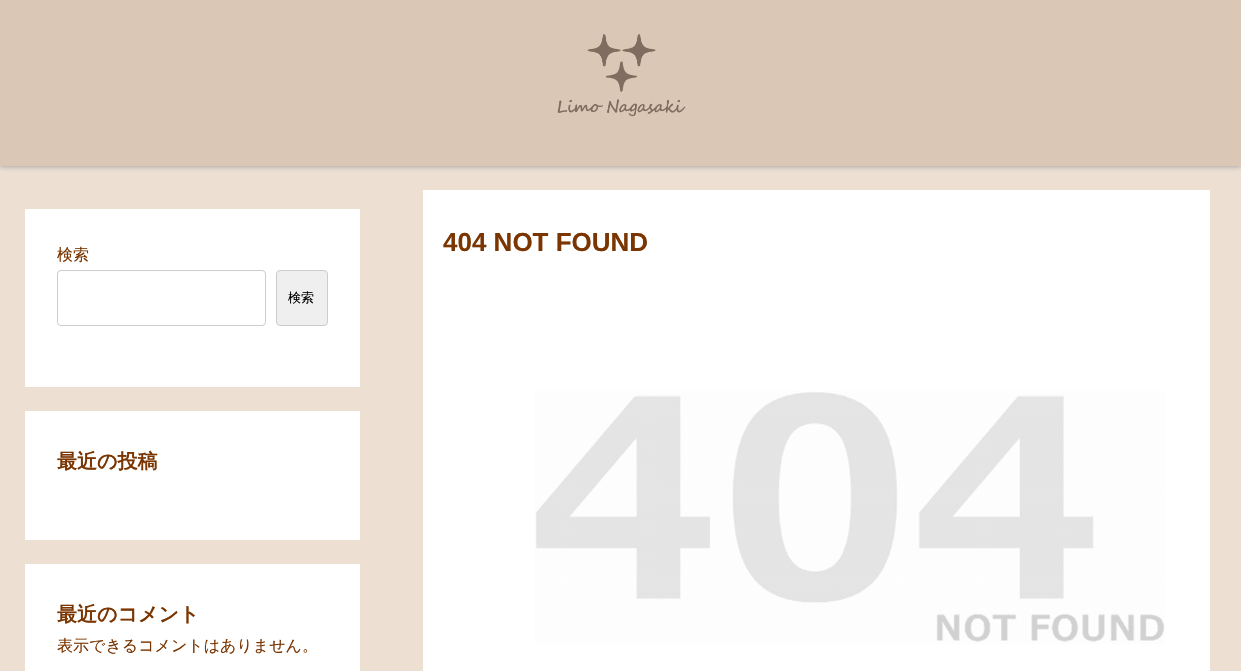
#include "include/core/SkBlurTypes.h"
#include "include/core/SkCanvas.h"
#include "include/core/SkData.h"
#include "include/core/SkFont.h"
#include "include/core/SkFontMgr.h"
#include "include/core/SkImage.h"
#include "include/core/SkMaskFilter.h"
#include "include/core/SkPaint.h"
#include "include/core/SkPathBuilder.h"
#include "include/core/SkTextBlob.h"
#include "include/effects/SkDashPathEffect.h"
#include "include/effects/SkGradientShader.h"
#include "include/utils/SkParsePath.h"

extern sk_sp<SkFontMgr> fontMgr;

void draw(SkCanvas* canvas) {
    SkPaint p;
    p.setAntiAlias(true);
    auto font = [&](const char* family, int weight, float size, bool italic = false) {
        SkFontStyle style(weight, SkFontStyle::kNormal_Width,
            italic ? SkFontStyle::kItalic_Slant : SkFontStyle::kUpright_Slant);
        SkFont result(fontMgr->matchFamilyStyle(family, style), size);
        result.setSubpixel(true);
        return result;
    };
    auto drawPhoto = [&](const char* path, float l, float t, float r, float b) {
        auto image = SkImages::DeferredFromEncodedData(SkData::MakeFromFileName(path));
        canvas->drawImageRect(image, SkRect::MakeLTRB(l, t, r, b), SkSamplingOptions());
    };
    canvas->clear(0xFFEDE0D3);
    p.setColor(0xFFA9A9A9);
    p.setMaskFilter(SkMaskFilter::MakeBlur(kNormal_SkBlurStyle, 2.5f));
    canvas->drawRect(SkRect::MakeLTRB(0, 1, 1241, 167), p);
    p.setMaskFilter(nullptr);
    p.setColor(0xFFDBC7B6);
    canvas->drawRect(SkRect::MakeLTRB(0, 0, 1241, 166), p);
    drawPhoto("media/1.png", 557, 34, 686, 117);
    p.setColor(0xFFFFFFFF);
    canvas->drawRect(SkRect::MakeLTRB(423, 190, 1210, 671), p);
    auto font1 = font("Liberation Sans", 700, 26);
    p.setColor(0xFF7A3501);
    canvas->drawString("404 NOT FOUND", 443, 251, font1, p);
    drawPhoto("media/2.png", 535, 391, 1165, 644);
    p.setColor(0xFFFFFFFF);
    canvas->drawRect(SkRect::MakeLTRB(25, 209, 360, 387), p);
    auto font2 = font("WenQuanYi Zen Hei", 500, 16);
    p.setColor(0xFF7A3501);
    canvas->drawString("検索", 57, 260, font2, p);
    p.setStyle(SkPaint::kStroke_Style);
    p.setStrokeWidth(1);
    p.setColor(0xFFCCCCCC);
    canvas->drawRoundRect(SkRect::MakeLTRB(57.5f, 270.5f, 265.5f, 325.5f), 3.5f, 3.5f, p);
    p.setStyle(SkPaint::kFill_Style);
    p.setColor(0xFFEFEFEF);
    canvas->drawRoundRect(SkRect::MakeLTRB(276.5f, 270.5f, 327.5f, 325.5f), 3.5f, 3.5f, p);
    p.setStyle(SkPaint::kStroke_Style);
    p.setColor(0xFFCCCCCC);
    canvas->drawRoundRect(SkRect::MakeLTRB(276.5f, 270.5f, 327.5f, 325.5f), 3.5f, 3.5f, p);
    auto font3 = font("WenQuanYi Zen Hei", 500, 13);
    p.setStyle(SkPaint::kFill_Style);
    p.setColor(0xFF000000);
    canvas->drawString("検索", 288, 302, font3, p);
    p.setColor(0xFFFFFFFF);
    canvas->drawRect(SkRect::MakeLTRB(25, 411, 360, 540), p);
    auto font4 = font("WenQuanYi Zen Hei", 700, 20);
    p.setColor(0xFF7A3501);
    canvas->drawString("最近の投稿", 57, 468, font4, p);
    p.setColor(0xFFFFFFFF);
    canvas->drawRect(SkRect::MakeLTRB(25, 564, 360, 671), p);
    p.setColor(0xFF7A3501);
    canvas->drawString("最近のコメント", 57, 621, font4, p);
    canvas->drawString("表示できるコメントはありません。", 57, 651, font2, p);
}
